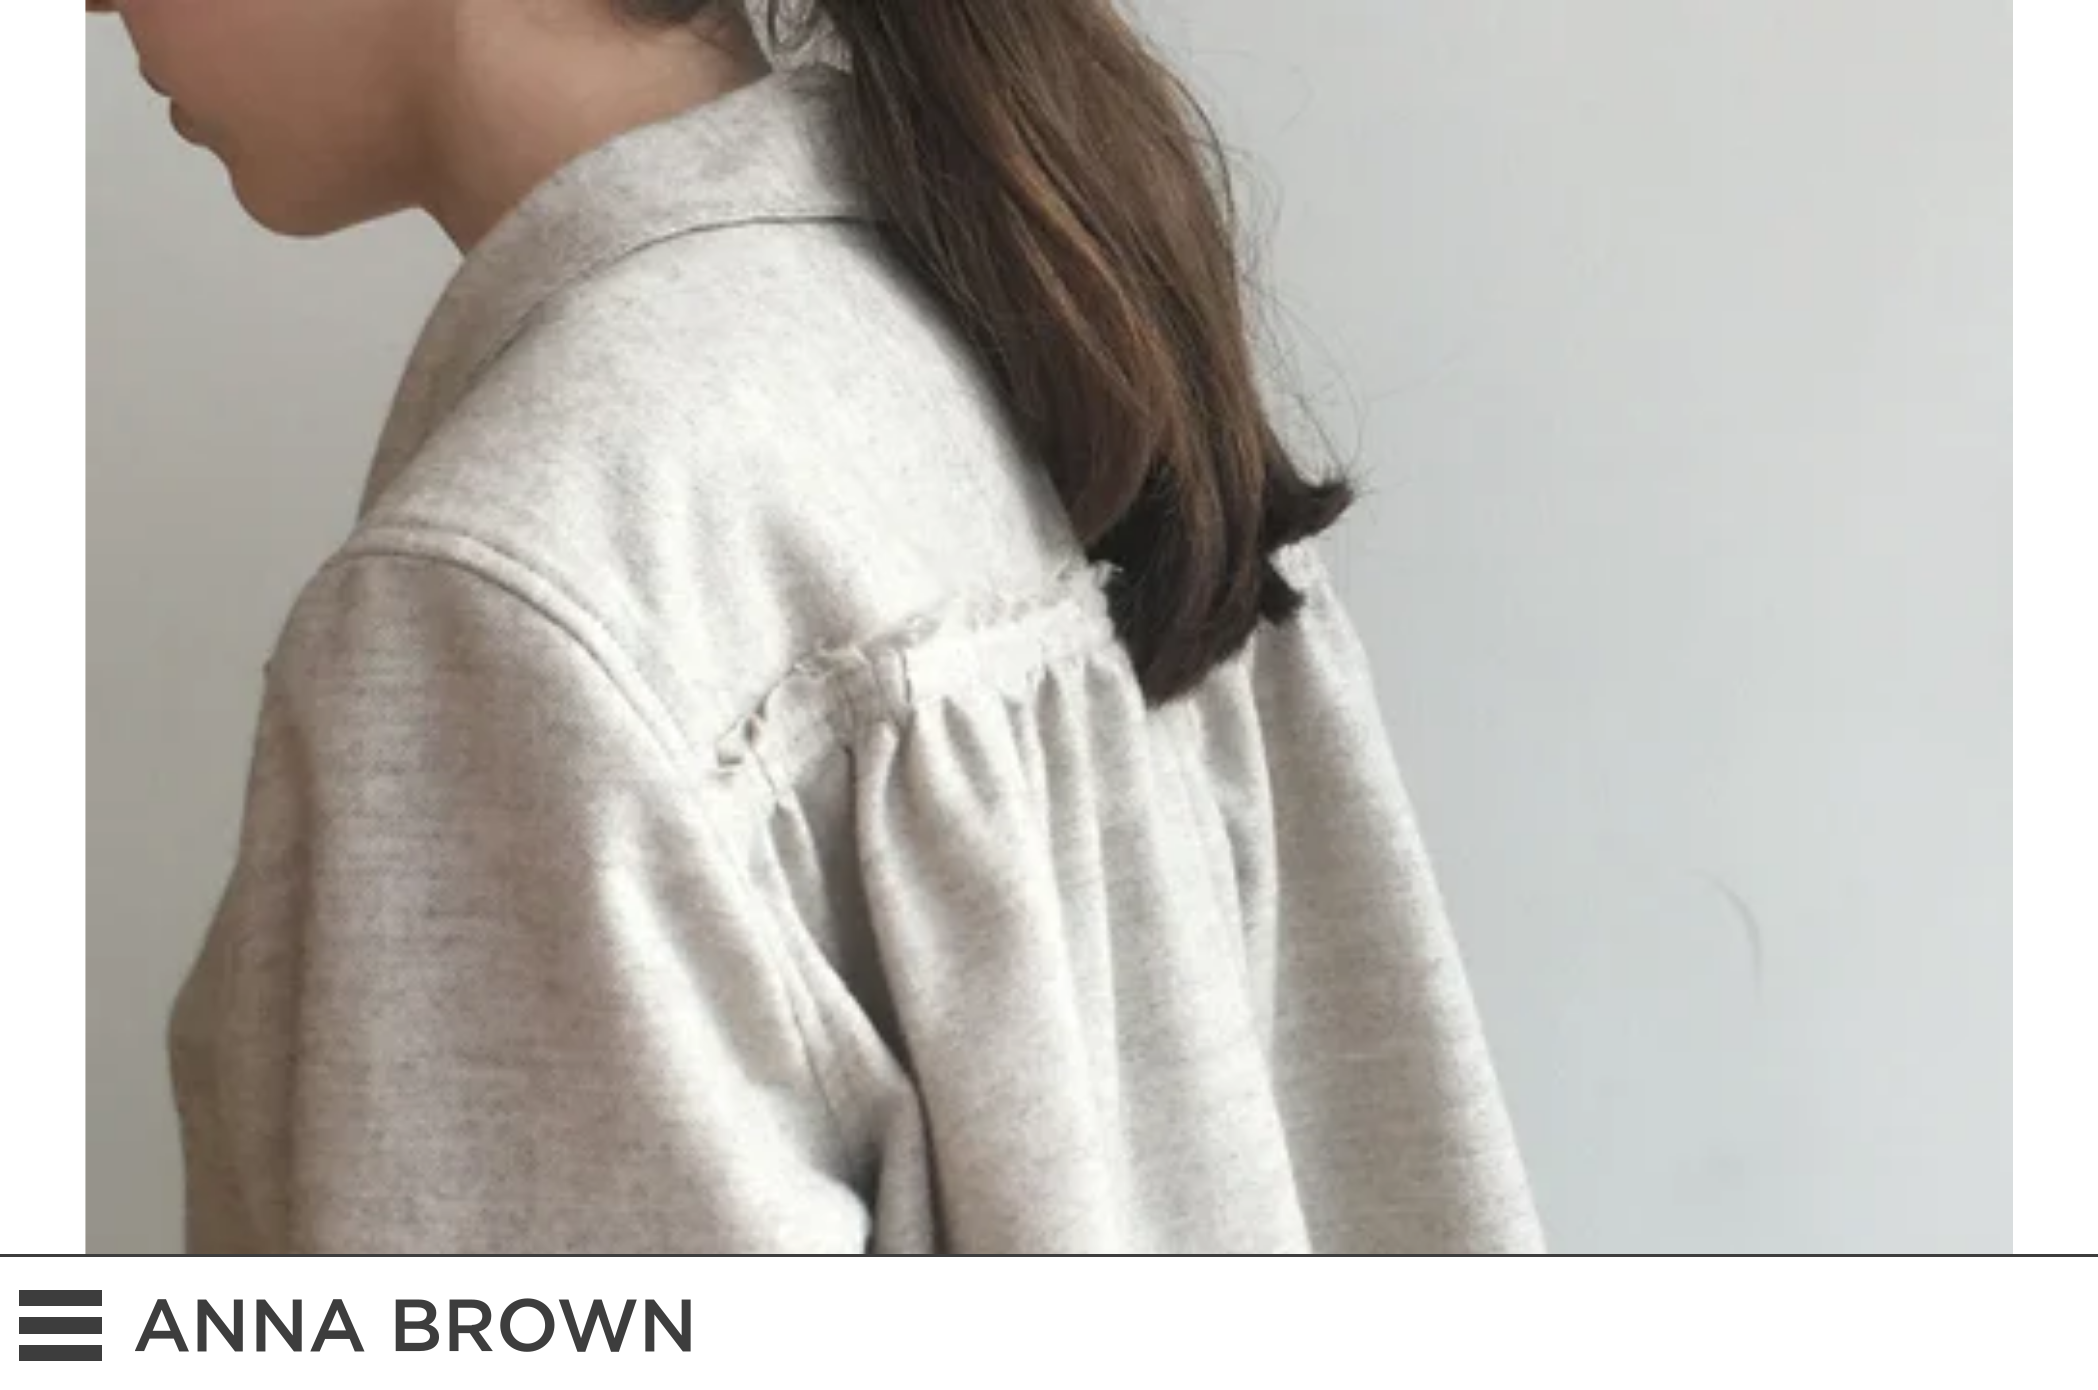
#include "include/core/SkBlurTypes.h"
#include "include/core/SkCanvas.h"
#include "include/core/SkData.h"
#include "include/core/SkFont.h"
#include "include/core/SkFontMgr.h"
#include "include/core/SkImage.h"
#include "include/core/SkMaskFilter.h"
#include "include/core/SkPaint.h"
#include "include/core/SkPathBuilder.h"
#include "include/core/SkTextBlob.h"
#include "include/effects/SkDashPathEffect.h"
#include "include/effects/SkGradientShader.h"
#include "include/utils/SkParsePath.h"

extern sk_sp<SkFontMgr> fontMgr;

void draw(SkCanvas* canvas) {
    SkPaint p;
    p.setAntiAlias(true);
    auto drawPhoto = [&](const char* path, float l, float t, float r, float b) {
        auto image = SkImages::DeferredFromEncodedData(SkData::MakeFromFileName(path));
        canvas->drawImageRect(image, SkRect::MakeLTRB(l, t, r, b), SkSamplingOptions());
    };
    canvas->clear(0xFFFFFFFF);
    drawPhoto("media/1.png", 85, 0, 2013, 1254);
    {
        const struct { float l, t, r, b; SkColor color; } items[] = {
            {0, 1254, 2098, 1257, 0xFF3D3D3D},
            {19, 1290, 102, 1306, 0xFF3D3D3D},
            {19, 1345, 102, 1361, 0xFF3D3D3D},
            {19, 1317, 102, 1334, 0xFF3D3D3D},
        };
        for (auto [l, t, r, b, color] : items) {
            p.setColor(color);
            canvas->drawRect(SkRect::MakeLTRB(l, t, r, b), p);
        }
    }
    drawPhoto("media/2.png", 135, 1298, 691, 1352);
}
